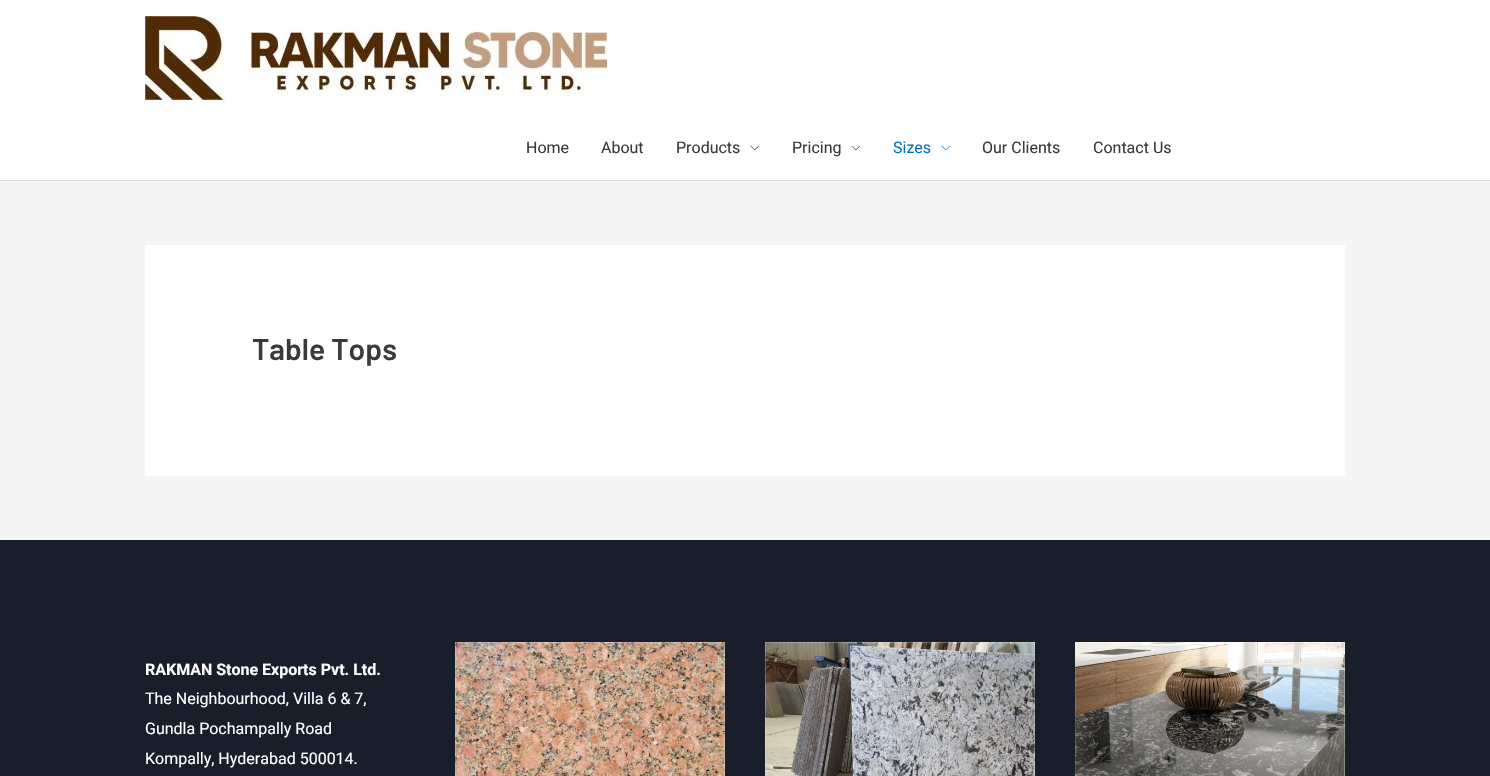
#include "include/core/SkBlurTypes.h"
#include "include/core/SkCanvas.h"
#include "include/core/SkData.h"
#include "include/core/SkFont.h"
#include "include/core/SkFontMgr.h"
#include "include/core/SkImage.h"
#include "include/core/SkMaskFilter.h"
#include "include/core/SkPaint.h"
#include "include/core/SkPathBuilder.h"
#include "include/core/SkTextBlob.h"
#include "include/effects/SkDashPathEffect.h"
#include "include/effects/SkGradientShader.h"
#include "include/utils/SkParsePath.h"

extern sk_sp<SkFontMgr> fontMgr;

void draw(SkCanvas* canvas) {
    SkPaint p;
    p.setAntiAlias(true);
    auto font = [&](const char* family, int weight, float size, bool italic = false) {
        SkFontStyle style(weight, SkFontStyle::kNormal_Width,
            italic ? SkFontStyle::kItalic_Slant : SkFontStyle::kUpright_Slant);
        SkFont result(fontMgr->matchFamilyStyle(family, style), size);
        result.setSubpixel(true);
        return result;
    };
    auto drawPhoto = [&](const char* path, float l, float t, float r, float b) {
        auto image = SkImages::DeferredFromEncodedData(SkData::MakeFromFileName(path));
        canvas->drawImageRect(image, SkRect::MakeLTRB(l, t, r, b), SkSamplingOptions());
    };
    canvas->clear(0xFFF5F5F5);
    p.setColor(0xFFFFFFFF);
    canvas->drawRect(SkRect::MakeLTRB(0, 0, 1490, 180), p);
    p.setColor(0xFFDDDDDD);
    canvas->drawRect(SkRect::MakeLTRB(0, 180, 1490, 181), p);
    drawPhoto("media/1.png", 145, 16, 607, 100);
    auto font1 = font("Roboto", 400, 16);
    p.setColor(0xFF3A3A3A);
    {
        const struct { const char* s; float x, y; } items[] = {
            {"Home", 526, 153},
            {"About", 601, 153},
            {"Products", 676, 153},
        };
        for (auto [s, x, y] : items) {
            canvas->drawString(s, x, y, font1, p);
        }
    }
    drawPhoto("media/2.png", 750, 145, 759, 151);
    canvas->drawString("Pricing", 792, 153, font1, p);
    drawPhoto("media/2.png", 851, 145, 860, 151);
    p.setColor(0xFF0274BE);
    canvas->drawString("Sizes", 893, 153, font1, p);
    drawPhoto("media/3.png", 941, 145, 950, 151);
    p.setColor(0xFF3A3A3A);
    canvas->drawString("Our Clients", 982, 153, font1, p);
    canvas->drawString("Contact Us", 1093, 153, font1, p);
    p.setColor(0xFFFFFFFF);
    canvas->drawRect(SkRect::MakeLTRB(145, 245, 1345, 476), p);
    auto font2 = font("Barlow", 600, 30);
    p.setColor(0xFF3A3A3A);
    canvas->drawString("Table Tops", 252, 360, font2, p);
    p.setColor(0xFF181F2A);
    canvas->drawRect(SkRect::MakeLTRB(0, 540, 1490, 776), p);
    auto font3 = font("Roboto", 700, 16);
    p.setColor(0xFFFFFFFF);
    canvas->drawString("RAKMAN Stone Exports Pvt. Ltd.", 145, 675, font3, p);
    {
        const struct { const char* s; float x, y; } items[] = {
            {"The Neighbourhood, Villa 6 & 7,", 145, 704},
            {"Gundla Pochampally Road", 145, 734},
            {"Kompally, Hyderabad 500014.", 145, 764},
        };
        for (auto [s, x, y] : items) {
            canvas->drawString(s, x, y, font1, p);
        }
    }
    drawPhoto("media/4.png", 455, 642, 725, 776);
    drawPhoto("media/5.png", 765, 642, 1035, 776);
    drawPhoto("media/6.png", 1075, 642, 1345, 776);
}
